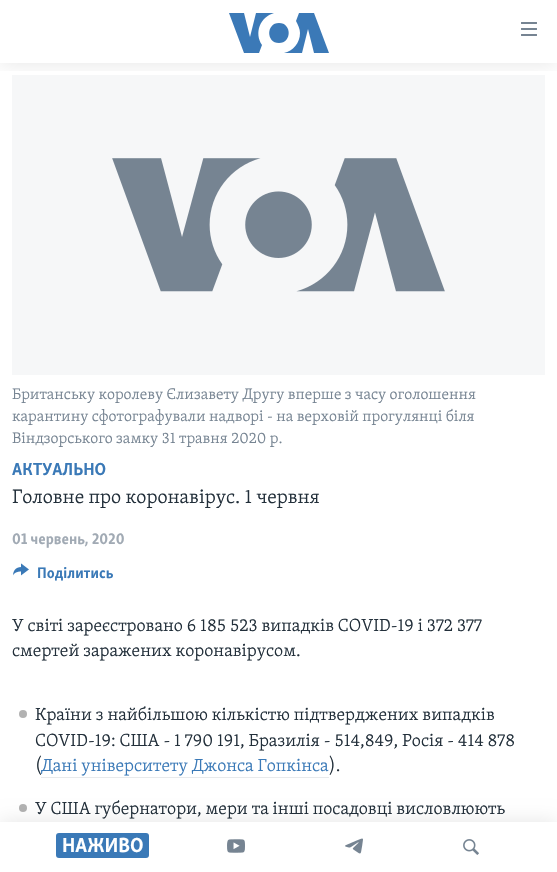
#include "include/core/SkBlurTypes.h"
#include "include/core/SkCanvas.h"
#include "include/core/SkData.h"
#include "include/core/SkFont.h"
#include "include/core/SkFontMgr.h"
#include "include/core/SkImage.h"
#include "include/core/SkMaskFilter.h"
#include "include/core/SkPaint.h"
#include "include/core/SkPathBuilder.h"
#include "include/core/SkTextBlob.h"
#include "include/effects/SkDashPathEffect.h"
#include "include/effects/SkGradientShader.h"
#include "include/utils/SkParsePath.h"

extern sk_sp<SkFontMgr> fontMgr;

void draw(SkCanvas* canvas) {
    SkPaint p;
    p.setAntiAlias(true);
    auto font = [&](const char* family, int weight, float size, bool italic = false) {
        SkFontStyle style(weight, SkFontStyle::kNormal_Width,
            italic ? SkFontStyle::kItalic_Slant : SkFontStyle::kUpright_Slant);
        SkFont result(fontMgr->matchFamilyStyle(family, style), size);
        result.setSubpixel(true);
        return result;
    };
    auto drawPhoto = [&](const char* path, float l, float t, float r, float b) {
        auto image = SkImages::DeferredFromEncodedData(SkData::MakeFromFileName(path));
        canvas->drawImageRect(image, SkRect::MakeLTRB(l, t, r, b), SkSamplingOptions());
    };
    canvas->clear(0xFFFFFFFF);
    p.setColor(0xFFF6F7F8);
    canvas->drawRect(SkRect::MakeLTRB(12, 75, 545, 375), p);
    drawPhoto("media/1.png", 112, 158, 445, 292);
    auto font1 = font("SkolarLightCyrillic", 300, 15.75f);
    p.setColor(0xFF768492);
    {
        const struct { const char* s; float x, y; } items[] = {
            {"Британську королеву Єлизавету Другу вперше з часу оголошення", 12, 399},
            {"карантину сфотографували надворі - на верховій прогулянці біля", 12, 421},
            {"Віндзорського замку 31 травня 2020 р.", 12, 443},
        };
        for (auto [s, x, y] : items) {
            canvas->drawString(s, x, y, font1, p);
        }
    }
    auto font2 = font("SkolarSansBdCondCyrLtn", 700, 18);
    p.setColor(0xFF3A79B7);
    canvas->drawString("АКТУАЛЬНО", 12, 475, font2, p);
    auto font3 = font("SkolarLightCyrillic", 300, 20);
    p.setColor(0xFF222F3A);
    canvas->drawString("Головне про коронавірус. 1 червня", 12, 503, font3, p);
    auto font4 = font("SkolarSansBdCondCyrLtn", 700, 15.75f);
    p.setColor(0xFFA1AAB4);
    canvas->drawString("01 червень, 2020", 12, 544, font4, p);
    drawPhoto("media/2.png", 13, 563, 29, 576);
    p.setColor(0xFF3A79B7);
    canvas->drawString("Поділитись", 37, 578, font4, p);
    auto font5 = font("SkolarLightCyrillic", 300, 18);
    p.setColor(0xFF222F3A);
    canvas->drawString("У світі зареєстровано 6 185 523 випадків COVID-19 і 372 377", 12, 631, font5, p);
    canvas->drawString("смертей заражених коронавірусом.", 12, 656, font5, p);
    p.setColor(0xFFB2B2B2);
    canvas->drawCircle(23, 714, 4, p);
    p.setColor(0xFF222F3A);
    {
        const struct { const char* s; float x, y; } items[] = {
            {"Країни з найбільшою кількістю підтверджених випадків", 35, 720},
            {"COVID-19: США - 1 790 191, Бразилія - 514,849, Росія - 414 878", 35, 746},
            {"(", 35, 771},
        };
        for (auto [s, x, y] : items) {
            canvas->drawString(s, x, y, font5, p);
        }
    }
    p.setColor(0xFF3A79B7);
    canvas->drawString("Дані університету Джонса Гопкінса", 41, 771, font5, p);
    p.setColor(0xFFE8EAEC);
    canvas->drawRect(SkRect::MakeLTRB(41, 777, 329, 778), p);
    p.setColor(0xFF222F3A);
    canvas->drawString(").", 329, 771, font5, p);
    p.setColor(0xFFB2B2B2);
    canvas->drawCircle(23, 808, 4, p);
    p.setColor(0xFF222F3A);
    canvas->drawString("У США губернатори, мери та інші посадовці висловлюють", 35, 814, font5, p);
    canvas->save();
    canvas->clipRect(SkRect::MakeLTRB(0, 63, 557, 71));
    p.setColor(0x1A000000);
    p.setMaskFilter(SkMaskFilter::MakeBlur(kNormal_SkBlurStyle, 10));
    canvas->drawRect(SkRect::MakeLTRB(0, 0, 557, 63), p);
    p.setMaskFilter(nullptr);
    canvas->restore();
    p.setColor(0xFF3B79B7);
    canvas->drawPath(SkPathBuilder().moveTo(262, 45).lineTo(259, 53).lineTo(244, 53).lineTo(229, 13).lineTo(244, 13).lineTo(250, 37).lineTo(256, 13).lineTo(274, 13).cubicTo(260, 17, 254, 33, 262, 45).close().moveTo(279, 23).cubicTo(266, 23, 266, 43, 279, 43).cubicTo(292, 43, 292, 23, 279, 23).close().moveTo(300, 33).cubicTo(300, 43, 293, 51, 284, 53).lineTo(302, 53).lineTo(308, 29).lineTo(314, 53).lineTo(329, 53).lineTo(314, 13).lineTo(299, 13).lineTo(296, 21).cubicTo(298, 25, 300, 29, 300, 33).close().detach(), p);
    drawPhoto("media/3.png", 521, 22, 537, 36);
    p.setColor(0x1A000000);
    p.setMaskFilter(SkMaskFilter::MakeBlur(kNormal_SkBlurStyle, 10));
    canvas->drawRect(SkRect::MakeLTRB(0, 822, 557, 872), p);
    p.setMaskFilter(nullptr);
    p.setColor(0xFFFFFFFF);
    canvas->drawRect(SkRect::MakeLTRB(0, 822, 557, 872), p);
    p.setColor(0xFF3A79B7);
    canvas->drawRoundRect(SkRect::MakeLTRB(56, 833, 149, 858), 3, 3, p);
    auto font6 = font("SkolarSansBdCondCyrLtn", 700, 21);
    p.setColor(0xFFFFFFFF);
    canvas->drawString("НАЖИВО", 62, 852, font6, p);
    drawPhoto("media/4.png", 227, 839, 245, 853);
    drawPhoto("media/5.png", 345, 838, 363, 854);
    drawPhoto("media/6.png", 463, 839, 479, 855);
}
